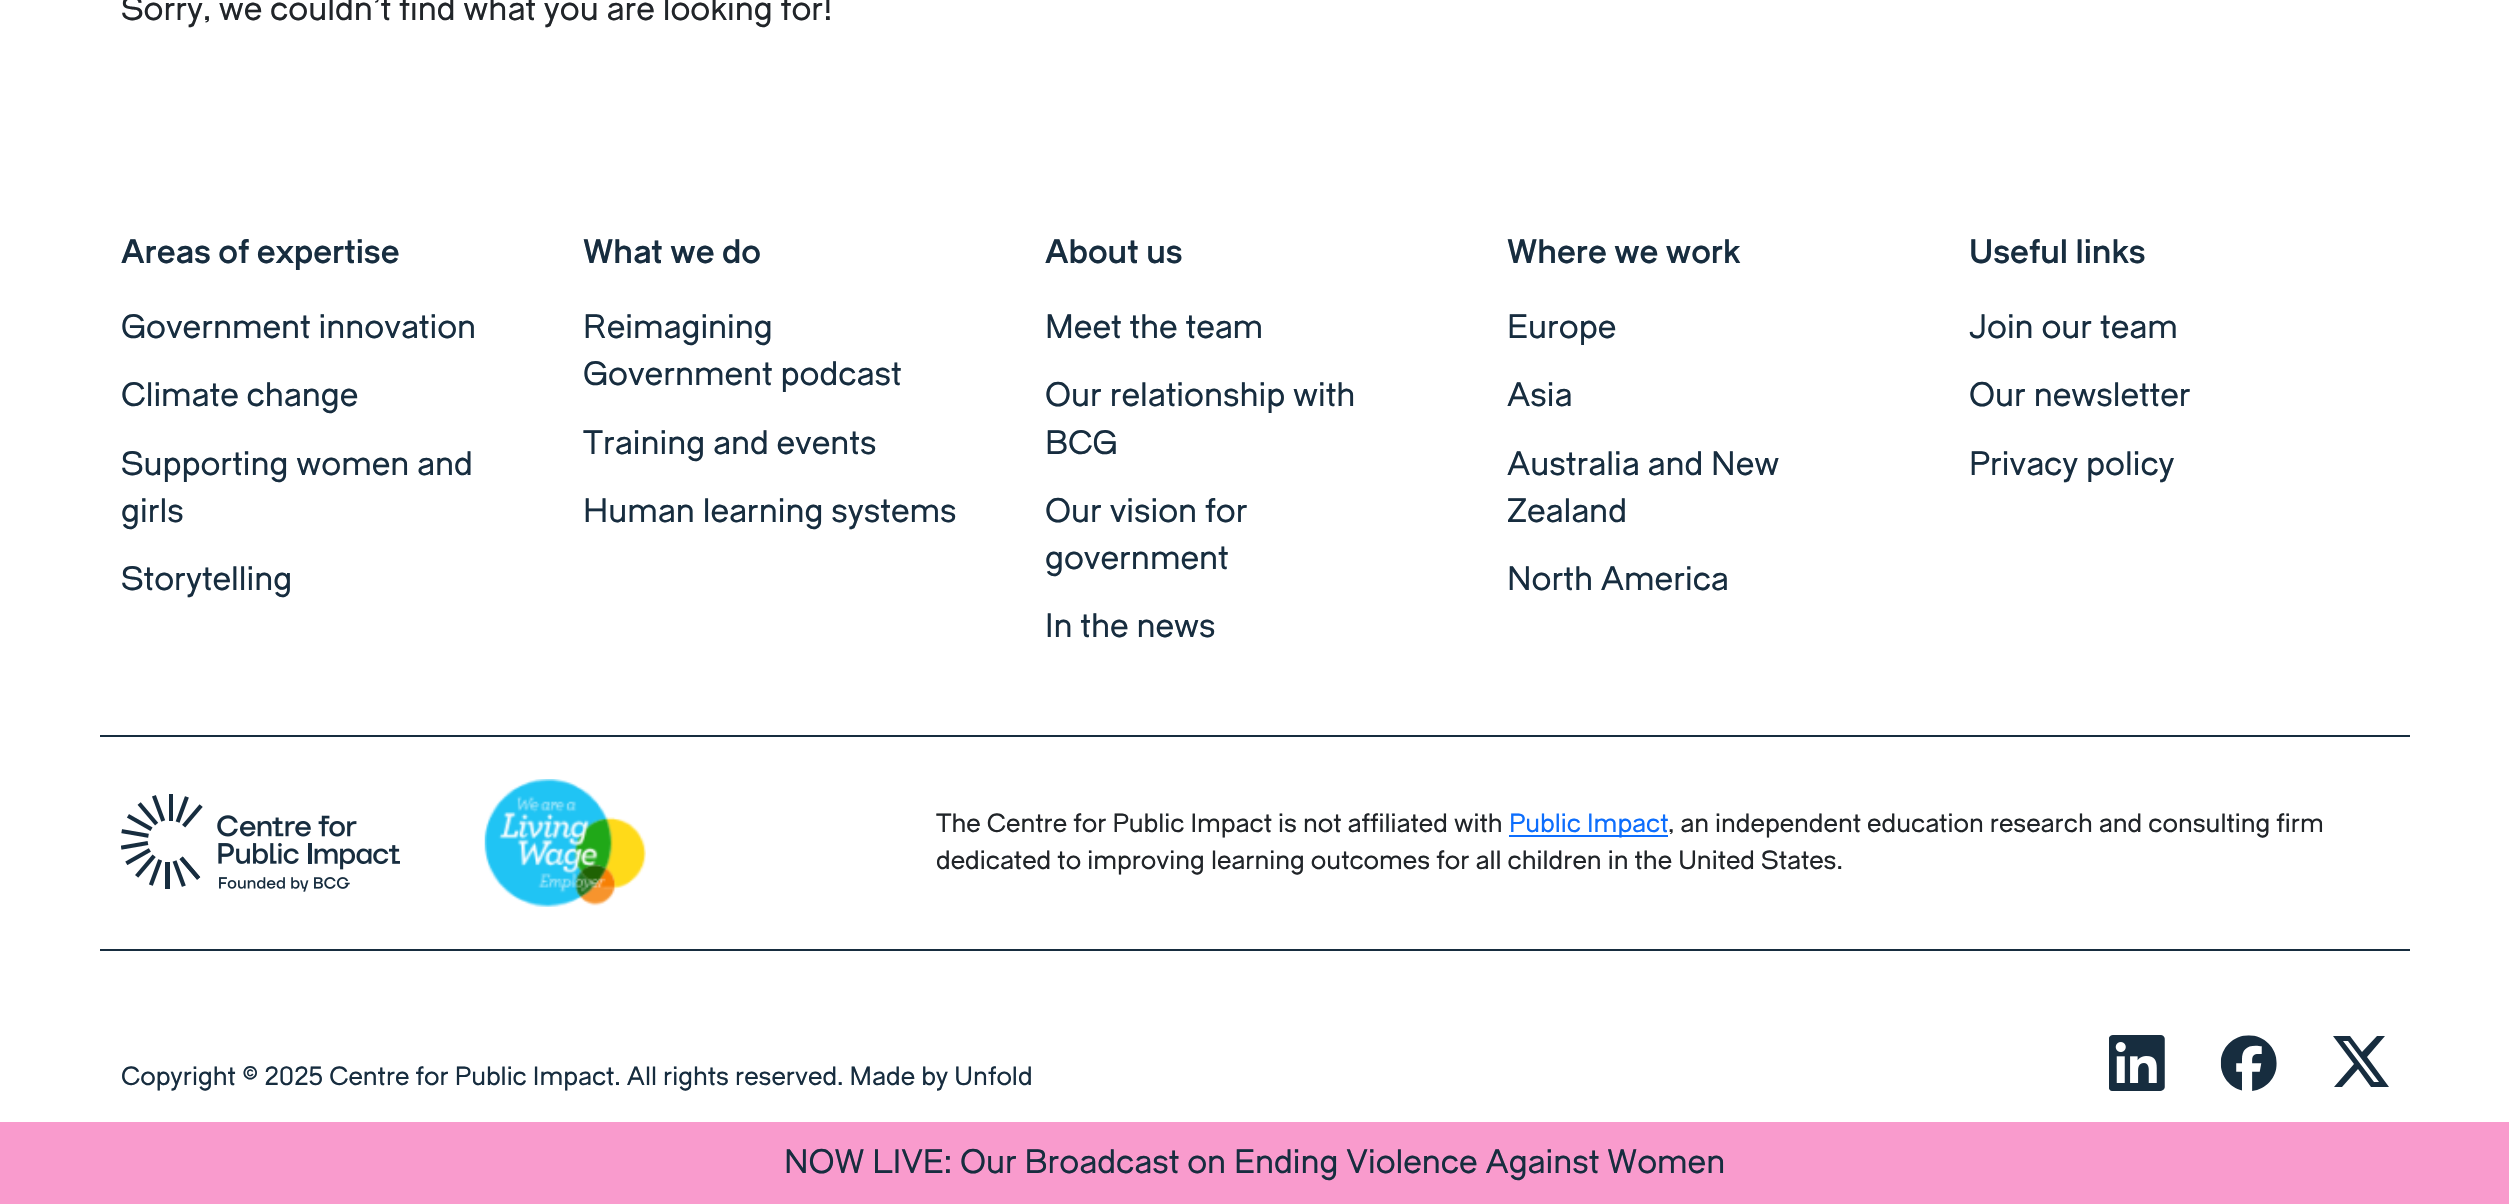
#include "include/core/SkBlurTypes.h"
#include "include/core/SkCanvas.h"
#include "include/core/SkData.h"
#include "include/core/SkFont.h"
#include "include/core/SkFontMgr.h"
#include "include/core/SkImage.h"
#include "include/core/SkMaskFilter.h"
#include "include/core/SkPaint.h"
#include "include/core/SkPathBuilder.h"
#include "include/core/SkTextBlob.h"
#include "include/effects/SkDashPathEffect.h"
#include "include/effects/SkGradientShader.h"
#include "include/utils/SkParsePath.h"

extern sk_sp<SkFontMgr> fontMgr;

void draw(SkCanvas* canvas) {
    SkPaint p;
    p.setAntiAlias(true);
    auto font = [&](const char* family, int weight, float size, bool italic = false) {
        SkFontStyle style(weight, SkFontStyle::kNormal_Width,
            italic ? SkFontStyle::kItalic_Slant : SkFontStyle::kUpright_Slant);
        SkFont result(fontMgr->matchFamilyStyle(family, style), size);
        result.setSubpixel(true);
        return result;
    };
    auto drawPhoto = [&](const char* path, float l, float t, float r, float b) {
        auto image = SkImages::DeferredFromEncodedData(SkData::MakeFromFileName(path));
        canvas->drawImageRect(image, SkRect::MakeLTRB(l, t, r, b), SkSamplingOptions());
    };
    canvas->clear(0xFFFFFFFF);
    auto font1 = font("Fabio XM", 400, 31.5f);
    p.setColor(0xFF212529);
    canvas->drawString("Sorry, we couldn't find what you are looking for!", 121, 20, font1, p);
    auto font2 = font("Fabio XM", 600, 31.5f);
    p.setColor(0xFF172D3F);
    canvas->drawString("Areas of expertise", 121, 263, font2, p);
    {
        const struct { const char* s; float x, y; } items[] = {
            {"Government innovation", 121, 338},
            {"Climate change", 121, 406},
            {"Supporting women and", 121, 475},
            {"girls", 121, 522},
            {"Storytelling", 121, 590},
        };
        for (auto [s, x, y] : items) {
            canvas->drawString(s, x, y, font1, p);
        }
    }
    canvas->drawString("What we do", 583, 263, font2, p);
    {
        const struct { const char* s; float x, y; } items[] = {
            {"Reimagining", 583, 338},
            {"Government podcast", 583, 385},
            {"Training and events", 583, 454},
            {"Human learning systems", 583, 522},
        };
        for (auto [s, x, y] : items) {
            canvas->drawString(s, x, y, font1, p);
        }
    }
    canvas->drawString("About us", 1045, 263, font2, p);
    {
        const struct { const char* s; float x, y; } items[] = {
            {"Meet the team", 1045, 338},
            {"Our relationship with", 1045, 406},
            {"BCG", 1045, 454},
            {"Our vision for", 1045, 522},
            {"government", 1045, 569},
            {"In the news", 1045, 637},
        };
        for (auto [s, x, y] : items) {
            canvas->drawString(s, x, y, font1, p);
        }
    }
    canvas->drawString("Where we work", 1507, 263, font2, p);
    {
        const struct { const char* s; float x, y; } items[] = {
            {"Europe", 1507, 338},
            {"Asia", 1507, 406},
            {"Australia and New", 1507, 475},
            {"Zealand", 1507, 522},
            {"North America", 1507, 590},
        };
        for (auto [s, x, y] : items) {
            canvas->drawString(s, x, y, font1, p);
        }
    }
    canvas->drawString("Useful links", 1969, 263, font2, p);
    {
        const struct { const char* s; float x, y; } items[] = {
            {"Join our team", 1969, 338},
            {"Our newsletter", 1969, 406},
            {"Privacy policy", 1969, 475},
        };
        for (auto [s, x, y] : items) {
            canvas->drawString(s, x, y, font1, p);
        }
    }
    canvas->drawRect(SkRect::MakeLTRB(100, 735, 2410, 737), p);
    drawPhoto("media/1.png", 121, 794, 400, 892);
    drawPhoto("media/2.png", 484, 779, 646, 907);
    auto font3 = font("Fabio XM", 400, 24.5f);
    p.setColor(0xFF212529);
    canvas->drawString("The Centre for Public Impact is not affiliated with", 936, 832, font3, p);
    p.setColor(0xFF0D6EFD);
    canvas->drawRect(SkRect::MakeLTRB(1509, 835, 1668, 837), p);
    canvas->drawString("Public Impact", 1509, 832, font3, p);
    p.setColor(0xFF212529);
    canvas->drawString(", an independent education research and consulting firm", 1668, 832, font3, p);
    canvas->drawString("dedicated to improving learning outcomes for all children in the United States.", 936, 869, font3, p);
    p.setColor(0xFF172D3F);
    canvas->drawRect(SkRect::MakeLTRB(100, 949, 2410, 951), p);
    canvas->drawString("Copyright © 2025 Centre for Public Impact. All rights reserved. Made by Unfold", 121, 1085, font3, p);
    drawPhoto("media/3.png", 2109, 1035, 2165, 1091);
    drawPhoto("media/4.png", 2220, 1035, 2277, 1091);
    canvas->drawPath(SkPathBuilder().moveTo(2377, 1036).lineTo(2385, 1036).lineTo(2367, 1057).lineTo(2389, 1087).lineTo(2371, 1087).lineTo(2358, 1069).lineTo(2342, 1087).lineTo(2334, 1087).lineTo(2354, 1064).lineTo(2333, 1036).lineTo(2350, 1036).lineTo(2362, 1052).close().moveTo(2374, 1082).lineTo(2379, 1082).lineTo(2348, 1041).lineTo(2343, 1041).close().detach(), p);
    p.setColor(0xFFF99BCD);
    canvas->drawRect(SkRect::MakeLTRB(0, 1122, 2509, 1204), p);
    p.setColor(0xFF172D3F);
    canvas->drawString("NOW LIVE: Our Broadcast on Ending Violence Against Women", 784, 1173, font1, p);
}
